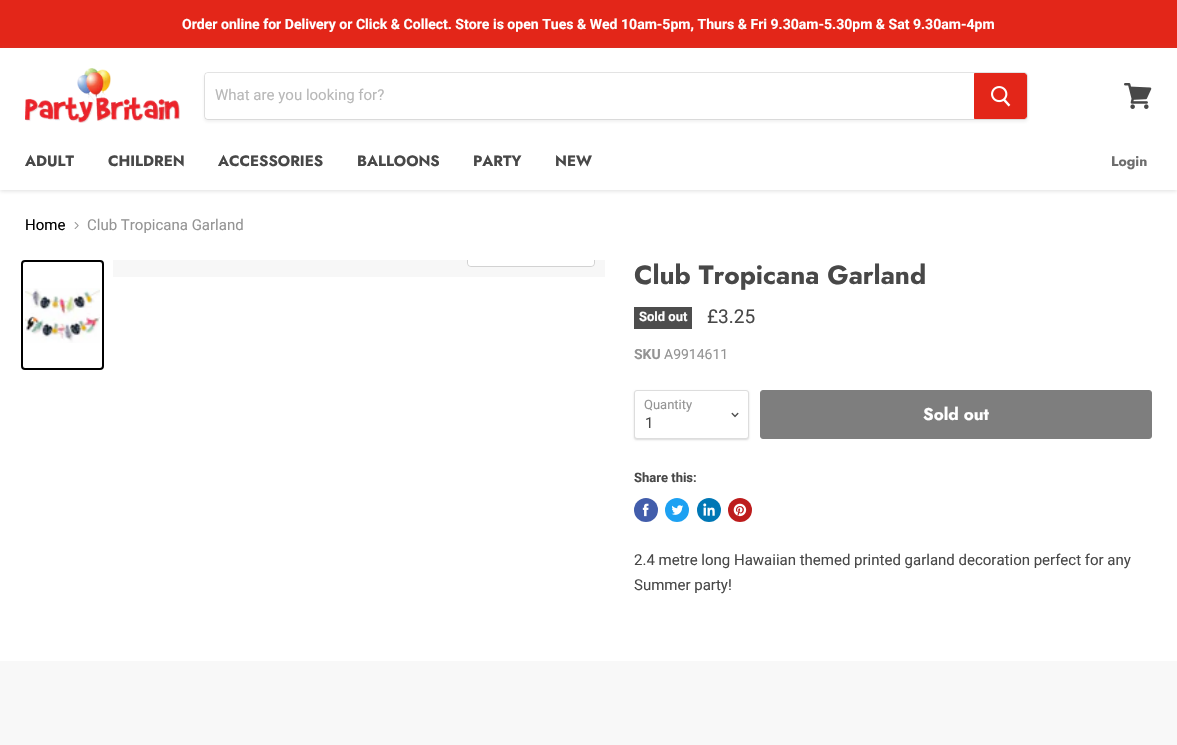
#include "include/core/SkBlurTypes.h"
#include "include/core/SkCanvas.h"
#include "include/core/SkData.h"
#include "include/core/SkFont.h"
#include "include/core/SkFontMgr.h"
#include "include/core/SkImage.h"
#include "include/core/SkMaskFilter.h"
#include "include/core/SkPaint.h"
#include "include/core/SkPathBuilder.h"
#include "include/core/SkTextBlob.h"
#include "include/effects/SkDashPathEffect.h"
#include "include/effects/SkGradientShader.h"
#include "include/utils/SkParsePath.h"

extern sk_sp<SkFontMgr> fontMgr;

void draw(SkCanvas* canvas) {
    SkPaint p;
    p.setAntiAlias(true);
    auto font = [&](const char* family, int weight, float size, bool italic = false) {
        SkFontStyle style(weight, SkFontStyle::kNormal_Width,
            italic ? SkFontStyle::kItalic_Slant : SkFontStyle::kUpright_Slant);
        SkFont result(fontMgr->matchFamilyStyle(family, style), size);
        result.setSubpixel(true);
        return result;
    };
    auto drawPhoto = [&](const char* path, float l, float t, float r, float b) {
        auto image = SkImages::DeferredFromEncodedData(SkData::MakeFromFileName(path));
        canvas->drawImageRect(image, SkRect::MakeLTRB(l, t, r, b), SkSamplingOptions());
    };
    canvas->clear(0xFFFFFFFF);
    p.setColor(0xFFE32619);
    canvas->drawRect(SkRect::MakeLTRB(0, 0, 1177, 48), p);
    auto font1 = font("Roboto", 700, 14.05f);
    p.setColor(0xFFFFFFFF);
    canvas->drawString("Order online for Delivery or Click & Collect. Store is open Tues & Wed 10am-5pm, Thurs & Fri 9.30am-5.30pm & Sat 9.30am-4pm", 182, 29, font1, p);
    canvas->save();
    canvas->clipPath(SkPathBuilder(SkPathFillType::kEvenOdd).moveTo(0, 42).lineTo(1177, 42).lineTo(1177, 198).lineTo(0, 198).close().moveTo(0, 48).lineTo(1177, 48).lineTo(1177, 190).lineTo(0, 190).close().detach(), true);
    p.setColor(0x407F7F7F);
    p.setMaskFilter(SkMaskFilter::MakeBlur(kNormal_SkBlurStyle, 2));
    canvas->drawRect(SkRect::MakeLTRB(0, 49, 1177, 191), p);
    p.setMaskFilter(nullptr);
    canvas->restore();
    drawPhoto("media/1.png", 25, 68, 180, 123);
    p.setColor(0x1C7F7F7F);
    p.setMaskFilter(SkMaskFilter::MakeBlur(kNormal_SkBlurStyle, 1.5f));
    canvas->drawRoundRect(SkRect::MakeLTRB(204, 74, 1028, 122), 4, 4, p);
    p.setMaskFilter(nullptr);
    p.setStyle(SkPaint::kStroke_Style);
    p.setStrokeWidth(1);
    p.setColor(0x337F7F7F);
    canvas->drawRoundRect(SkRect::MakeLTRB(204.5f, 72.5f, 1027.5f, 119.5f), 3.5f, 3.5f, p);
    p.setStyle(SkPaint::kFill_Style);
    p.setColor(0xFFFFFFFF);
    canvas->drawPath(SkPathBuilder().moveTo(208, 73).lineTo(974, 73).lineTo(974, 119).lineTo(208, 119).cubicTo(206.5f, 119, 205, 117.5f, 205, 116).lineTo(205, 76).cubicTo(205, 74.5f, 206.5f, 73, 208, 73).close().detach(), p);
    auto font2 = font("Roboto", 400, 15);
    p.setColor(0xFFB8B8B8);
    canvas->drawString("What are you looking for?", 215, 100, font2, p);
    p.setColor(0xFFE32619);
    canvas->drawPath(SkPathBuilder().moveTo(974.5f, 73.5f).lineTo(1024, 73.5f).cubicTo(1025.5f, 73.5f, 1026.5f, 74.5f, 1026.5f, 76).lineTo(1026.5f, 116).cubicTo(1026.5f, 117.5f, 1025.5f, 118.5f, 1024, 118.5f).lineTo(974.5f, 118.5f).close().detach(), p);
    p.setStyle(SkPaint::kStroke_Style);
    canvas->drawPath(SkPathBuilder().moveTo(974.5f, 73.5f).lineTo(1024, 73.5f).cubicTo(1025.5f, 73.5f, 1026.5f, 74.5f, 1026.5f, 76).lineTo(1026.5f, 116).cubicTo(1026.5f, 117.5f, 1025.5f, 118.5f, 1024, 118.5f).lineTo(974.5f, 118.5f).close().detach(), p);
    drawPhoto("media/2.png", 991, 86, 1011, 107);
    drawPhoto("media/3.png", 1124, 83, 1152, 109);
    auto font3 = font("Jost", 700, 15);
    p.setStyle(SkPaint::kFill_Style);
    p.setColor(0xFF484848);
    {
        const struct { const char* s; float x, y; } items[] = {
            {"ADULT", 25, 166},
            {"CHILDREN", 108, 166},
            {"ACCESSORIES", 218, 166},
            {"BALLOONS", 357, 166},
            {"PARTY", 473, 166},
            {"NEW", 555, 166},
        };
        for (auto [s, x, y] : items) {
            canvas->drawString(s, x, y, font3, p);
        }
    }
    auto font4 = font("Jost", 700, 14.05f);
    p.setColor(0xFF6D6D6D);
    canvas->drawString("Login", 1111, 166, font4, p);
    p.setColor(0xFF000000);
    canvas->drawString("Home", 25, 230, font2, p);
    drawPhoto("media/4.png", 74, 222, 79, 229);
    p.setColor(0xFF949494);
    canvas->drawString("Club Tropicana Garland", 87, 230, font2, p);
    p.setStyle(SkPaint::kStroke_Style);
    p.setStrokeWidth(2);
    p.setColor(0xFF000000);
    canvas->drawRoundRect(SkRect::MakeLTRB(22, 261, 103, 369), 3, 3, p);
    drawPhoto("media/5.png", 25, 288, 100, 343);
    p.setStyle(SkPaint::kFill_Style);
    p.setColor(0xFFF7F7F7);
    canvas->drawRect(SkRect::MakeLTRB(113, 260, 605, 277), p);
    canvas->save();
    canvas->clipRect(SkRect::MakeLTRB(113, 260, 605, 277));
    p.setStyle(SkPaint::kStroke_Style);
    p.setStrokeWidth(1);
    p.setColor(0xFFD2D2D2);
    canvas->drawRoundRect(SkRect::MakeLTRB(467.5f, 238.5f, 594.5f, 266.5f), 3.5f, 3.5f, p);
    canvas->restore();
    p.setStyle(SkPaint::kFill_Style);
    p.setColor(0xE6FFFFFF);
    canvas->drawPath(SkPathBuilder().moveTo(468, 260).lineTo(594, 260).lineTo(594, 263).cubicTo(594, 264.5f, 592.5f, 266, 591, 266).lineTo(471, 266).cubicTo(469.5f, 266, 468, 264.5f, 468, 263).close().detach(), p);
    auto font5 = font("Jost", 700, 26.25f);
    p.setColor(0xFF484848);
    canvas->drawString("Club Tropicana Garland", 634, 284, font5, p);
    p.setColor(0xFF4D4D4D);
    canvas->drawRect(SkRect::MakeLTRB(634, 307, 692, 329), p);
    auto font6 = font("Roboto", 700, 13);
    p.setColor(0xFFFFFFFF);
    canvas->drawString("Sold out", 639, 321, font6, p);
    auto font7 = font("Roboto", 400, 19);
    p.setColor(0xFF484848);
    canvas->drawString("£3.25", 707, 323, font7, p);
    auto font8 = font("Roboto", 700, 14);
    p.setColor(0xFF949494);
    canvas->drawString("SKU", 634, 359, font8, p);
    auto font9 = font("Roboto", 400, 14);
    canvas->drawString("A9914611", 664, 359, font9, p);
    p.setColor(0x26000000);
    p.setMaskFilter(SkMaskFilter::MakeBlur(kNormal_SkBlurStyle, 1));
    canvas->drawRoundRect(SkRect::MakeLTRB(634, 391, 749, 440), 3, 3, p);
    p.setMaskFilter(nullptr);
    p.setColor(0xFFFFFFFF);
    canvas->drawRoundRect(SkRect::MakeLTRB(634.5f, 390.5f, 748.5f, 438.5f), 2.5f, 2.5f, p);
    p.setStyle(SkPaint::kStroke_Style);
    p.setColor(0xFFDDDDDD);
    canvas->drawRoundRect(SkRect::MakeLTRB(634.5f, 390.5f, 748.5f, 438.5f), 2.5f, 2.5f, p);
    auto font10 = font("Roboto", 400, 13);
    p.setStyle(SkPaint::kFill_Style);
    p.setColor(0xFF949494);
    canvas->drawString("Quantity", 644, 409, font10, p);
    drawPhoto("media/6.png", 731, 412, 739, 418);
    p.setColor(0xFF484848);
    canvas->drawString("1", 645, 428, font2, p);
    p.setColor(0xFF7E7E7E);
    canvas->drawRoundRect(SkRect::MakeLTRB(760.5f, 390.5f, 1151.5f, 438.5f), 2.5f, 2.5f, p);
    p.setStyle(SkPaint::kStroke_Style);
    canvas->drawRoundRect(SkRect::MakeLTRB(760.5f, 390.5f, 1151.5f, 438.5f), 2.5f, 2.5f, p);
    auto font11 = font("Jost", 700, 17);
    p.setStyle(SkPaint::kFill_Style);
    p.setColor(0xFFFFFFFF);
    canvas->drawString("Sold out", 923, 420, font11, p);
    p.setColor(0xFF484848);
    canvas->drawString("Share this:", 634, 482, font6, p);
    p.setColor(0xFF425DAB);
    canvas->drawCircle(646, 510, 12, p);
    drawPhoto("media/7.png", 642, 503, 649, 517);
    p.setColor(0xFF1DA1F2);
    canvas->drawCircle(677, 510, 12, p);
    drawPhoto("media/8.png", 671, 505, 684, 515);
    p.setColor(0xFF0077B5);
    canvas->drawCircle(709, 510, 12, p);
    drawPhoto("media/9.png", 703, 503, 715, 516);
    p.setColor(0xFFBD1C1C);
    canvas->drawCircle(740, 510, 12, p);
    drawPhoto("media/10.png", 733, 503, 747, 517);
    p.setColor(0xFF484848);
    canvas->drawString("2.4 metre long Hawaiian themed printed garland decoration perfect for any", 634, 565, font2, p);
    canvas->drawString("Summer party!", 634, 590, font2, p);
    p.setColor(0xFFF8F8F8);
    canvas->drawRect(SkRect::MakeLTRB(0, 661, 1177, 745), p);
}
